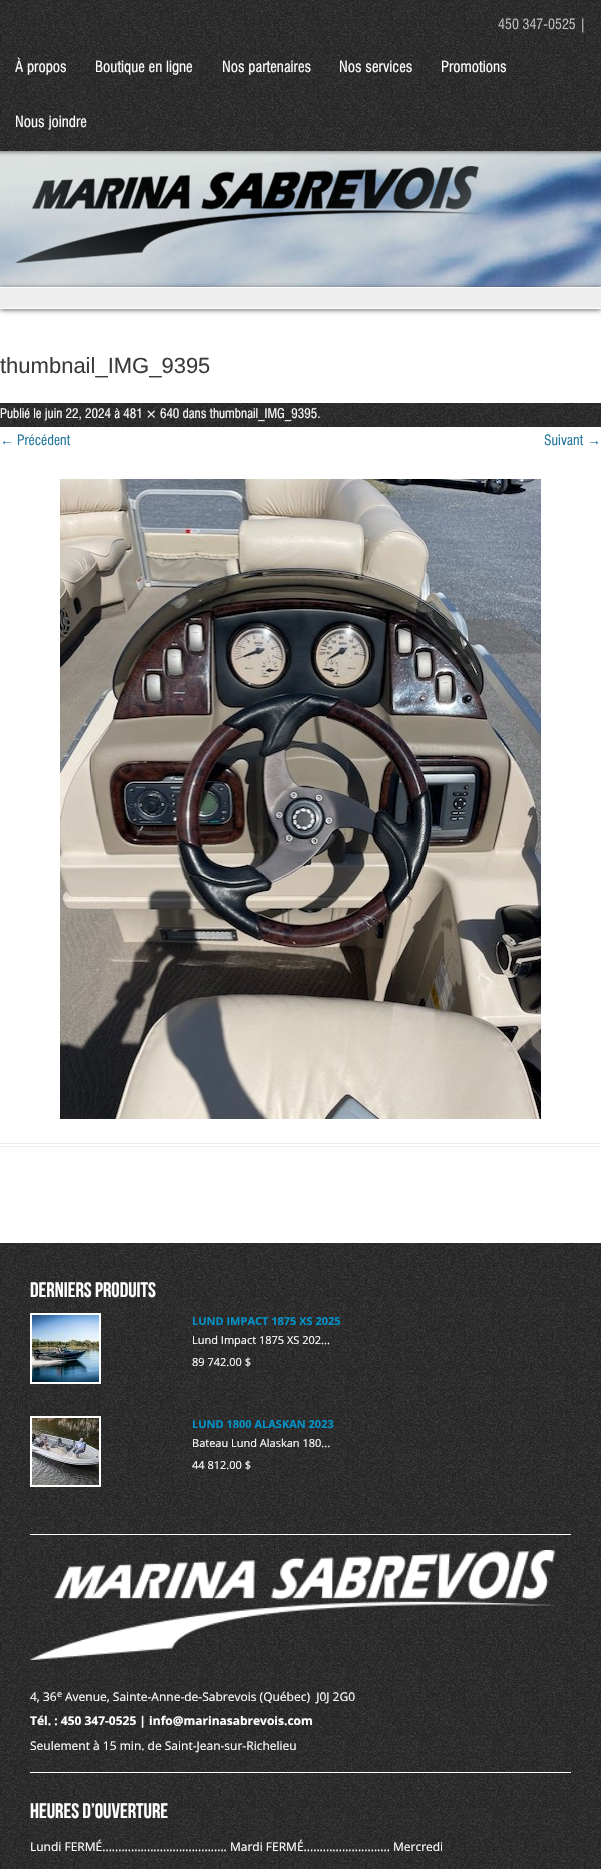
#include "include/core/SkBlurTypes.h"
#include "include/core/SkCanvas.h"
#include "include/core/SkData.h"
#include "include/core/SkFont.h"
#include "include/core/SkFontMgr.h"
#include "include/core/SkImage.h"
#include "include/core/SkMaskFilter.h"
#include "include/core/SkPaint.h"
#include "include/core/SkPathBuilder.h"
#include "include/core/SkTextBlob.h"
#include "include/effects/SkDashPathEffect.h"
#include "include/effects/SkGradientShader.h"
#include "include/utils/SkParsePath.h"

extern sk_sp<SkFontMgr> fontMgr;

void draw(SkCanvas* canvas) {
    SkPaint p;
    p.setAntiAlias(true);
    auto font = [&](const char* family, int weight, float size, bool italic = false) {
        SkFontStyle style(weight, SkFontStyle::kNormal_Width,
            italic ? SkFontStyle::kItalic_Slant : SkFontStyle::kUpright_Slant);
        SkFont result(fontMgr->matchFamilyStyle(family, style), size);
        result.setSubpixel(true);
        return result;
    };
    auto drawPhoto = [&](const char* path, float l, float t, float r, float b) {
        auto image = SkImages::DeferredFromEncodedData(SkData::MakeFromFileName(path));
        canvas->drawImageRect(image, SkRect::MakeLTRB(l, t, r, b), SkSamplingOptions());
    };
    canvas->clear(0xFFFFFFFF);
    p.setColor(0xFF292929);
    canvas->drawRect(SkRect::MakeLTRB(0, 0, 601, 151), p);
    drawPhoto("media/1.png", 0, 0, 601, 151);
    auto font1 = font("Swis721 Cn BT", 400, 14);
    p.setColor(0xFFBCBCBC);
    canvas->drawString("450 347-0525 |", 498, 29, font1, p);
    auto font2 = font("Swis721 Cn BT", 400, 15);
    p.setColor(0xFFFFFFFF);
    {
        const struct { const char* s; float x, y; } items[] = {
            {"À propos", 15, 72},
            {"Boutique en ligne", 95, 72},
            {"Nos partenaires", 222, 72},
            {"Nos services", 339, 72},
            {"Promotions", 441, 72},
            {"Nous joindre", 15, 127},
        };
        for (auto [s, x, y] : items) {
            canvas->drawString(s, x, y, font2, p);
        }
    }
    drawPhoto("media/2.png", 0, 151, 601, 287);
    drawPhoto("media/3.png", 15, 166, 480, 263);
    p.setColor(0x99000000);
    p.setMaskFilter(SkMaskFilter::MakeBlur(kNormal_SkBlurStyle, 2.5f));
    canvas->drawRect(SkRect::MakeLTRB(0, 288, 601, 310), p);
    p.setMaskFilter(nullptr);
    {
        const struct { float l, t, r, b; SkColor color; } items[] = {
            {0, 288, 601, 308, 0xFFEEEEEE},
            {0, 287, 601, 288, 0xFFFFFFFF},
            {0, 308, 601, 309, 0xFFFFFFFF},
            {0, 1143, 601, 1144, 0xFFEDEDED},
            {0, 1146, 601, 1147, 0xFFEDEDED},
        };
        for (auto [l, t, r, b, color] : items) {
            p.setColor(color);
            canvas->drawRect(SkRect::MakeLTRB(l, t, r, b), p);
        }
    }
    auto font3 = font("Liberation Sans", 400, 22);
    p.setColor(0xFF3B3B3B);
    canvas->drawString("thumbnail_IMG_9395", 0, 373, font3, p);
    p.setColor(0xFF292929);
    canvas->drawRect(SkRect::MakeLTRB(0, 403, 601, 427), p);
    drawPhoto("media/4.png", 0, 403, 601, 427);
    auto font4 = font("Swis721 Cn BT", 400, 13);
    p.setColor(0xFFFFFFFF);
    canvas->drawString("Publié le juin 22, 2024 à 481 × 640 dans thumbnail_IMG_9395.", 0, 418, font4, p);
    auto font5 = font("Liberation Sans", 400, 14);
    p.setColor(0xFF21759B);
    canvas->drawString("←", 0, 445, font5, p);
    canvas->drawString("Précédent", 17, 445, font1, p);
    canvas->drawString("Suivant", 544, 445, font1, p);
    canvas->drawString("→", 587, 445, font5, p);
    drawPhoto("media/5.png", 60, 479, 541, 1119);
    p.setColor(0xFF292929);
    canvas->drawRect(SkRect::MakeLTRB(0, 1243, 601, 1869), p);
    drawPhoto("media/6.png", 0, 1243, 601, 1869);
    p.setColor(0xFFFFFFFF);
    canvas->drawRect(SkRect::MakeLTRB(30, 1534, 571, 1535), p);
    auto font6 = font("Bebas Neue", 400, 21);
    canvas->drawString("DERNIERS PRODUITS", 30, 1297, font6, p);
    p.setStyle(SkPaint::kStroke_Style);
    p.setStrokeWidth(2);
    canvas->drawRect(SkRect::MakeLTRB(31, 1314, 100, 1383), p);
    drawPhoto("media/7.png", 32, 1315, 99, 1382);
    auto font7 = font("Open Sans", 700, 11);
    p.setStyle(SkPaint::kFill_Style);
    p.setColor(0xFF0193C9);
    canvas->drawString("LUND IMPACT 1875 XS 2025", 192, 1325, font7, p);
    auto font8 = font("Open Sans", 400, 11);
    p.setColor(0xFFFFFFFF);
    canvas->drawString("Lund Impact 1875 XS 202...", 192, 1344, font8, p);
    canvas->drawString("89 742.00 $", 192, 1366, font8, p);
    p.setStyle(SkPaint::kStroke_Style);
    canvas->drawRect(SkRect::MakeLTRB(31, 1417, 100, 1486), p);
    drawPhoto("media/8.png", 32, 1418, 99, 1485);
    p.setStyle(SkPaint::kFill_Style);
    p.setColor(0xFF0193C9);
    canvas->drawString("LUND 1800 ALASKAN 2023", 192, 1428, font7, p);
    p.setColor(0xFFFFFFFF);
    canvas->drawString("Bateau Lund Alaskan 180...", 192, 1447, font8, p);
    canvas->drawString("44 812.00 $", 192, 1469, font8, p);
    drawPhoto("media/9.png", 30, 1550, 555, 1660);
    canvas->drawRect(SkRect::MakeLTRB(30, 1772, 571, 1773), p);
    auto font9 = font("Open Sans", 400, 12);
    canvas->drawString("4, 36", 30, 1701, font9, p);
    auto font10 = font("Open Sans", 400, 9);
    canvas->drawString("e", 57, 1697, font10, p);
    canvas->drawString("Avenue, Sainte-Anne-de-Sabrevois (Québec)  J0J 2G0", 65, 1701, font9, p);
    auto font11 = font("Open Sans", 700, 12);
    canvas->drawString("Tél. : 450 347-0525 | info@marinasabrevois.com", 30, 1725, font11, p);
    canvas->drawString("Seulement à 15 min. de Saint-Jean-sur-Richelieu", 30, 1750, font9, p);
    canvas->drawString("HEURES D’OUVERTURE", 30, 1818, font6, p);
    canvas->drawString("Lundi FERMÉ....................................... Mardi FERMÉ........................... Mercredi", 30, 1851, font9, p);
}
